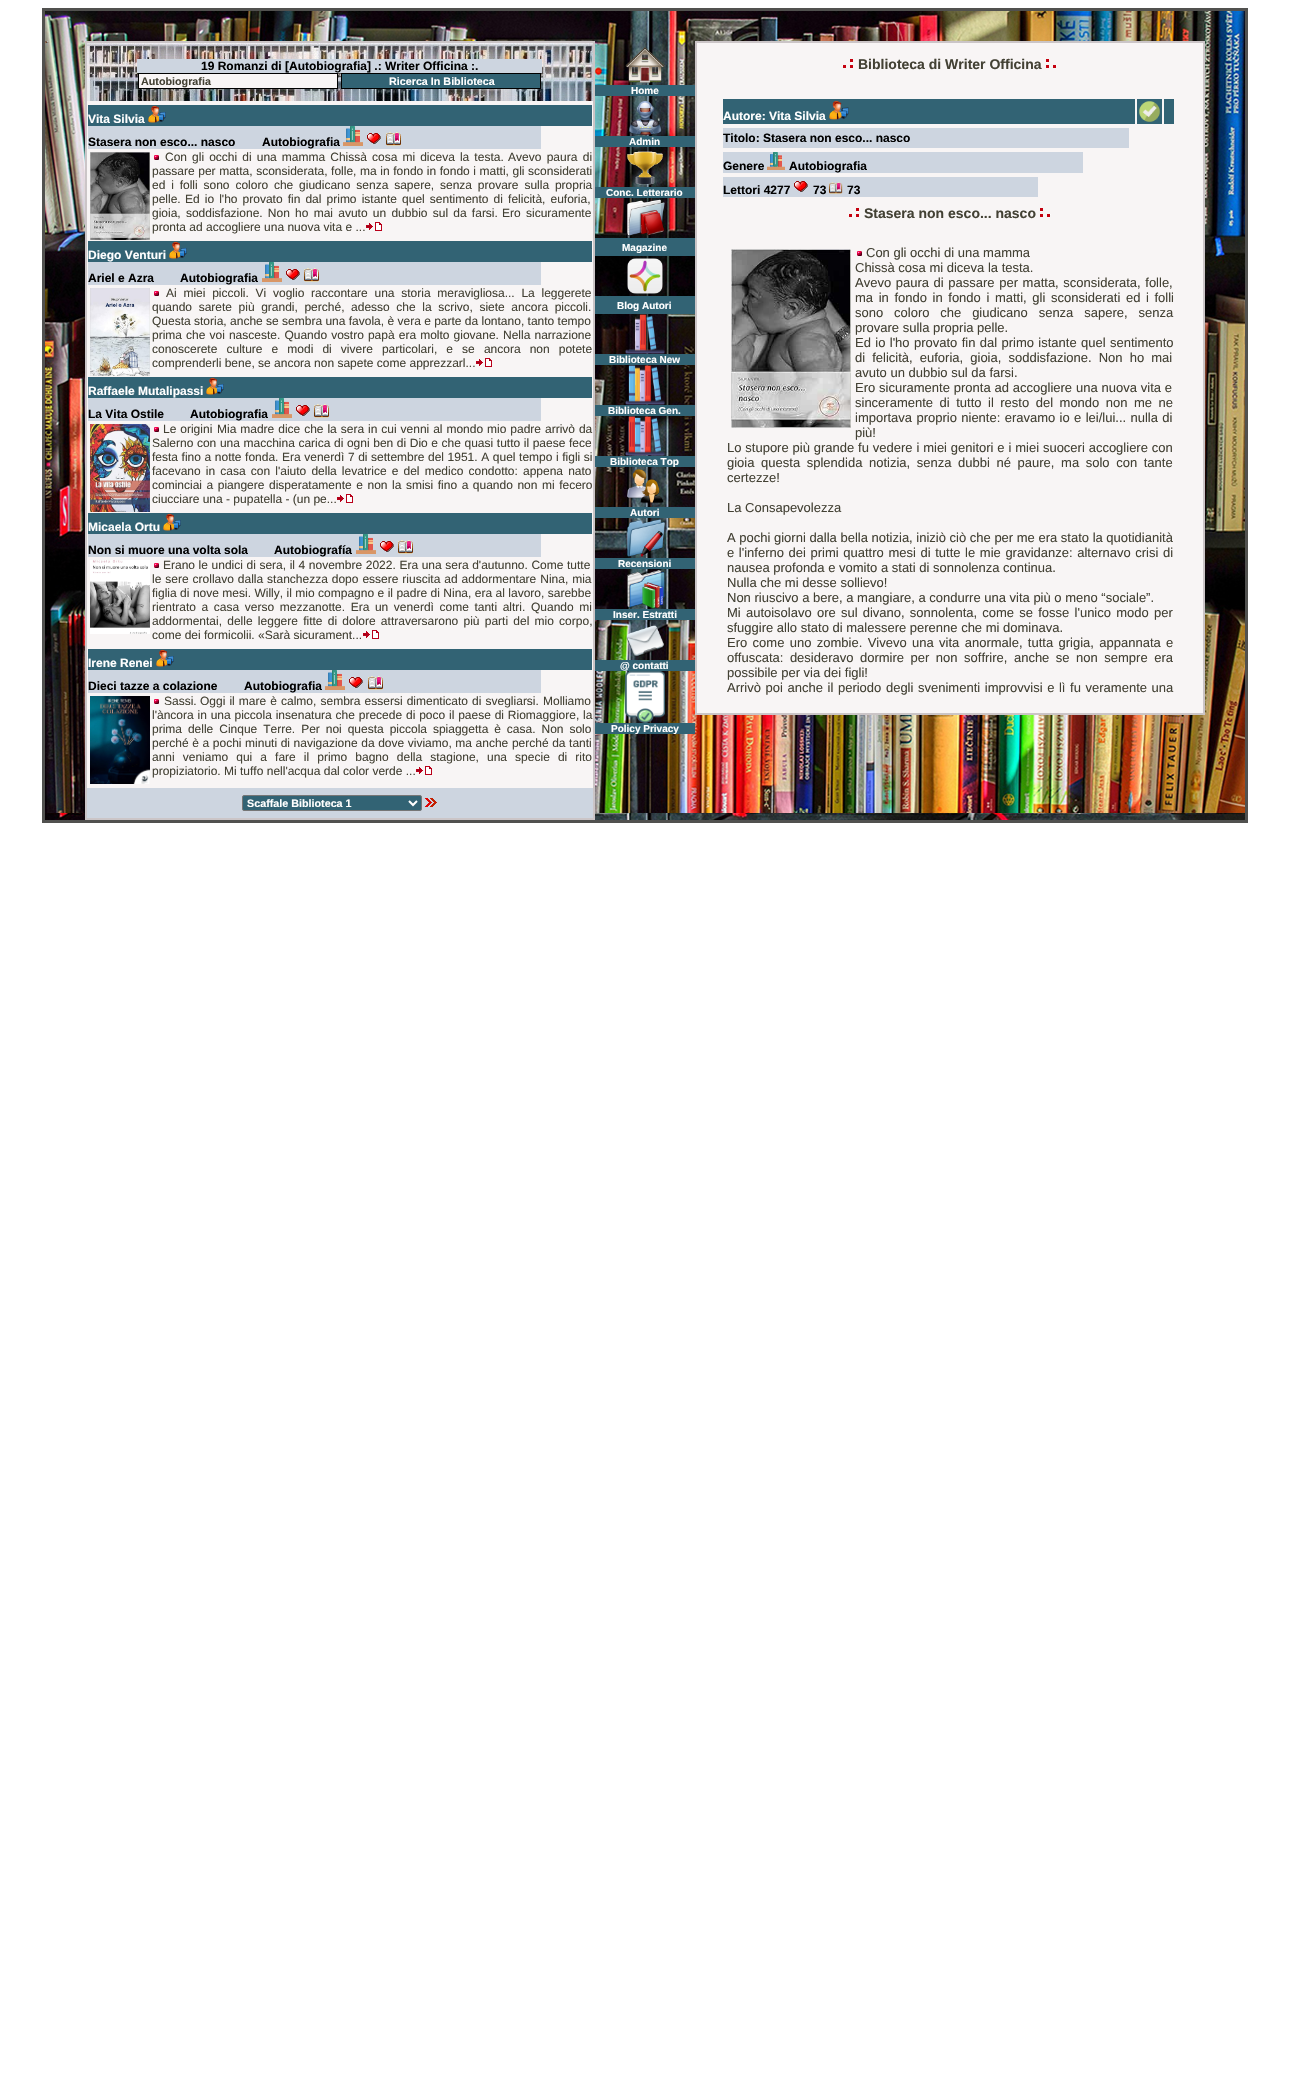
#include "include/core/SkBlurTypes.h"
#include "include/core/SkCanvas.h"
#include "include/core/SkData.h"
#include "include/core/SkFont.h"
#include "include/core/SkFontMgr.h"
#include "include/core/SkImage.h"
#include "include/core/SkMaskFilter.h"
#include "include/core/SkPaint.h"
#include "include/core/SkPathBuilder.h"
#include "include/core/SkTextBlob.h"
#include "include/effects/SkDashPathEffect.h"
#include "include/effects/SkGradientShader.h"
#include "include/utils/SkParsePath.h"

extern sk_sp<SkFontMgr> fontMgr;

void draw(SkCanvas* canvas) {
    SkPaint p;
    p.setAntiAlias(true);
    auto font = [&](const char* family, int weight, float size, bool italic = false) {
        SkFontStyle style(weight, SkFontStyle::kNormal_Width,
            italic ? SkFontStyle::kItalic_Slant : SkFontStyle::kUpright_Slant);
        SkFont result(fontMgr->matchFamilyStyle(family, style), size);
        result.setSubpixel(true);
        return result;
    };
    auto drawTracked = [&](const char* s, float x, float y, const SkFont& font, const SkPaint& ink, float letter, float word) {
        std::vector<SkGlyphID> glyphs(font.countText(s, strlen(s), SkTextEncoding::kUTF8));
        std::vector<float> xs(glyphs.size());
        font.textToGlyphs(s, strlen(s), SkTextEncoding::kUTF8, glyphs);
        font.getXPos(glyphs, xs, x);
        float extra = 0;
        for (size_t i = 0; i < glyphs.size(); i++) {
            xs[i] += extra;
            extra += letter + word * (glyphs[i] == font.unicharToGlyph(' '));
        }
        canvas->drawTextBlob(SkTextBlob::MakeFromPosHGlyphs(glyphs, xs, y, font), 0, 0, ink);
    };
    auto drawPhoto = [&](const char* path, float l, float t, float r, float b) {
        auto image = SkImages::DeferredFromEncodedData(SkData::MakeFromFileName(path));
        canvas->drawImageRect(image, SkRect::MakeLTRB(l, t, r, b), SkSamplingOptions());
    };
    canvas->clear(0xFFFFFFFF);
    p.setStyle(SkPaint::kStroke_Style);
    p.setStrokeWidth(2);
    p.setColor(0xFF51514F);
    canvas->drawRect(SkRect::MakeLTRB(43, 9, 1247, 822), p);
    drawPhoto("media/1.png", 45, 11, 1245, 820);
    p.setStrokeWidth(1);
    canvas->drawRect(SkRect::MakeLTRB(44.5f, 10.5f, 1245.5f, 820.5f), p);
    drawPhoto("media/2.png", 45, 41, 47, 43);
    drawPhoto("media/3.png", 47, 41, 49, 43);
    p.setStyle(SkPaint::kFill_Style);
    p.setColor(0xFFF8F5F5);
    canvas->drawRect(SkRect::MakeLTRB(87, 101, 593, 788), p);
    p.setStyle(SkPaint::kStroke_Style);
    p.setColor(0xFFCBC5C7);
    canvas->drawRect(SkRect::MakeLTRB(85.5f, 41.5f, 594.5f, 819.5f), p);
    canvas->drawRect(SkRect::MakeLTRB(86.5f, 42.5f, 593.5f, 818.5f), p);
    drawPhoto("media/4.png", 87, 43, 593, 101);
    p.setStyle(SkPaint::kFill_Style);
    p.setColor(0xFFCDD5E0);
    canvas->drawRect(SkRect::MakeLTRB(137, 59, 542, 73), p);
    auto font1 = font("Liberation Sans", 700, 12);
    p.setColor(0xFF000000);
    canvas->drawString("19 Romanzi di [Autobiografia] .: Writer Officina :.", 201, 70, font1, p);
    p.setColor(0xFFF8F5F5);
    canvas->drawRect(SkRect::MakeLTRB(138.5f, 73.5f, 337.5f, 88.5f), p);
    p.setStyle(SkPaint::kStroke_Style);
    p.setColor(0xFF000000);
    canvas->drawRect(SkRect::MakeLTRB(138.5f, 73.5f, 337.5f, 88.5f), p);
    auto font2 = font("Liberation Sans", 700, 10.75f);
    p.setStyle(SkPaint::kFill_Style);
    p.setColor(0xFF434134);
    canvas->drawString("Autobiografia", 141, 85, font2, p);
    p.setColor(0xFF326374);
    canvas->drawRect(SkRect::MakeLTRB(341.5f, 73.5f, 540.5f, 88.5f), p);
    p.setStyle(SkPaint::kStroke_Style);
    p.setColor(0xFF000000);
    canvas->drawRect(SkRect::MakeLTRB(341.5f, 73.5f, 540.5f, 88.5f), p);
    p.setStyle(SkPaint::kFill_Style);
    p.setColor(0xFFFFFFFF);
    canvas->drawString("Ricerca In Biblioteca", 389, 85, font2, p);
    p.setColor(0xFF326374);
    canvas->drawRect(SkRect::MakeLTRB(88, 105, 592, 126), p);
    p.setColor(0xFFFFFFFF);
    canvas->drawString("Vita Silvia", 88, 123, font1, p);
    drawPhoto("media/5.png", 148, 105, 166, 123);
    p.setColor(0xFFCDD5E0);
    canvas->drawRect(SkRect::MakeLTRB(88, 126, 541, 149), p);
    p.setColor(0xFF000000);
    canvas->drawString("Stasera non esco... nasco", 88, 146, font1, p);
    canvas->drawString("Autobiografia", 262, 146, font1, p);
    drawPhoto("media/6.png", 343, 126, 363, 146);
    drawPhoto("media/7.png", 367, 133, 381, 144);
    drawPhoto("media/8.png", 386, 132, 401, 146);
    drawPhoto("media/9.png", 90, 152, 150, 240);
    drawPhoto("media/10.png", 154, 155, 159, 160);
    auto font3 = font("Liberation Sans", 400, 12);
    p.setColor(0xFF434134);
    drawTracked("Con gli occhi di una mamma Chissà cosa mi diceva la testa.", 165, 161, font3, p, 0, 1.75f);
    drawTracked("Avevo paura di", 508, 161, font3, p, 0, 2);
    drawTracked("passare per matta, sconsiderata, folle, ma in fondo in fondo i matti, gli sconsiderati", 152, 175, font3, p, 0, 0.25f);
    drawTracked("ed i folli sono coloro che giudicano senza sapere, senza provare sulla propria", 152, 189, font3, p, 0, 2.5f);
    canvas->drawString("pelle.", 152, 203, font3, p);
    drawTracked("Ed io l'ho provato fin dal primo istante quel sentimento di felicità, euforia,", 185, 203, font3, p, 0, 1.75f);
    drawTracked("gioia, soddisfazione. Non ho mai avuto un dubbio sul da farsi.", 152, 217, font3, p, 0, 1.9f);
    drawTracked("Ero sicuramente", 502, 217, font3, p, 0, 2);
    canvas->drawString("pronta ad accogliere una nuova vita e ...", 152, 231, font3, p);
    drawPhoto("media/11.png", 366, 222, 382, 231);
    p.setColor(0xFF326374);
    canvas->drawRect(SkRect::MakeLTRB(88, 241, 592, 262), p);
    p.setColor(0xFFFFFFFF);
    canvas->drawString("Diego Venturi", 88, 259, font1, p);
    drawPhoto("media/5.png", 169, 241, 187, 259);
    p.setColor(0xFFCDD5E0);
    canvas->drawRect(SkRect::MakeLTRB(88, 262, 541, 285), p);
    p.setColor(0xFF000000);
    canvas->drawString("Ariel e Azra", 88, 282, font1, p);
    canvas->drawString("Autobiografia", 180, 282, font1, p);
    drawPhoto("media/12.png", 262, 262, 282, 282);
    drawPhoto("media/7.png", 286, 269, 300, 280);
    drawPhoto("media/8.png", 304, 268, 319, 282);
    drawPhoto("media/13.png", 90, 288, 150, 376);
    drawPhoto("media/10.png", 154, 291, 159, 296);
    p.setColor(0xFF434134);
    drawTracked("Ai miei piccoli. Vi voglio raccontare una storia meravigliosa... La leggerete", 166, 297, font3, p, 0, 3.4f);
    drawTracked("quando sarete più grandi, perché, adesso che la scrivo, siete ancora piccoli.", 152, 311, font3, p, 0, 3.25f);
    canvas->drawString("Questa storia, anche se sembra una favola, è vera e parte da lontano, tanto tempo", 152, 325, font3, p);
    drawTracked("prima che voi nasceste. Quando vostro papà era molto giovane. Nella narrazione", 152, 339, font3, p, 0, 0.75f);
    drawTracked("conoscerete culture e modi di vivere particolari, e se ancora non potete", 152, 353, font3, p, 0, 5.75f);
    canvas->drawString("comprenderli bene, se ancora non sapete come apprezzarl...", 152, 367, font3, p);
    drawPhoto("media/11.png", 476, 358, 492, 367);
    p.setColor(0xFF326374);
    canvas->drawRect(SkRect::MakeLTRB(88, 377, 592, 398), p);
    p.setColor(0xFFFFFFFF);
    canvas->drawString("Raffaele Mutalipassi", 88, 395, font1, p);
    drawPhoto("media/5.png", 206, 377, 224, 395);
    p.setColor(0xFFCDD5E0);
    canvas->drawRect(SkRect::MakeLTRB(88, 398, 541, 421), p);
    p.setColor(0xFF000000);
    canvas->drawString("La Vita Ostile", 88, 418, font1, p);
    canvas->drawString("Autobiografia", 190, 418, font1, p);
    drawPhoto("media/6.png", 272, 398, 292, 418);
    drawPhoto("media/7.png", 296, 405, 310, 416);
    drawPhoto("media/8.png", 314, 404, 329, 418);
    drawPhoto("media/14.png", 90, 424, 150, 512);
    drawPhoto("media/10.png", 154, 427, 159, 432);
    p.setColor(0xFF434134);
    drawTracked("Le origini", 163, 433, font3, p, 0, 0.6f);
    drawTracked("Mia madre dice che la sera in cui venni al mondo mio padre arrivò da", 217, 433, font3, p, 0, 0.6f);
    drawTracked("Salerno con una macchina carica di ogni ben di Dio e che quasi tutto il paese fece", 152, 447, font3, p, 0, 0.25f);
    drawTracked("festa fino a notte fonda. Era venerdì 7 di settembre del 1951. A quel tempo i figli si", 152, 461, font3, p, 0, 0.25f);
    drawTracked("facevano in casa con l'aiuto della levatrice e del medico condotto: appena nato", 152, 475, font3, p, 0, 1.8f);
    drawTracked("cominciai a piangere disperatamente e non la smisi fino a quando non mi fecero", 152, 489, font3, p, 0, 1.2f);
    canvas->drawString("ciucciare una - pupatella - (un pe...", 152, 503, font3, p);
    drawPhoto("media/11.png", 337, 494, 353, 503);
    p.setColor(0xFF326374);
    canvas->drawRect(SkRect::MakeLTRB(88, 513, 592, 534), p);
    p.setColor(0xFFFFFFFF);
    canvas->drawString("Micaela Ortu", 88, 531, font1, p);
    drawPhoto("media/5.png", 163, 513, 181, 531);
    p.setColor(0xFFCDD5E0);
    canvas->drawRect(SkRect::MakeLTRB(88, 534, 541, 557), p);
    p.setColor(0xFF000000);
    canvas->drawString("Non si muore una volta sola", 88, 554, font1, p);
    canvas->drawString("Autobiografía", 274, 554, font1, p);
    drawPhoto("media/12.png", 356, 534, 376, 554);
    drawPhoto("media/7.png", 380, 541, 394, 552);
    drawPhoto("media/8.png", 398, 540, 413, 554);
    drawPhoto("media/15.png", 90, 560, 150, 634);
    drawPhoto("media/10.png", 154, 563, 159, 568);
    p.setColor(0xFF434134);
    drawTracked("Erano le undici di sera, il 4 novembre 2022. Era una sera d'autunno. Come tutte", 163, 569, font3, p, 0, 0.25f);
    drawTracked("le sere crollavo dalla stanchezza dopo essere riuscita ad addormentare Nina, mia", 152, 583, font3, p, 0, 0.6f);
    drawTracked("figlia di nove mesi. Willy, il mio compagno e il padre di Nina, era al lavoro, sarebbe", 152, 597, font3, p, 0, 0.1f);
    drawTracked("rientrato a casa verso mezzanotte. Era un venerdì come tanti altri.", 152, 611, font3, p, 0, 2.25f);
    drawTracked("Quando mi", 531, 611, font3, p, 0, 2.25f);
    drawTracked("addormentai, delle leggere fitte di dolore attraversarono più parti del mio corpo,", 152, 625, font3, p, 0, 1.9f);
    canvas->drawString("come dei formicolii. «Sarà sicurament...", 152, 639, font3, p);
    drawPhoto("media/11.png", 363, 630, 379, 639);
    p.setColor(0xFF326374);
    canvas->drawRect(SkRect::MakeLTRB(88, 649, 592, 670), p);
    p.setColor(0xFFFFFFFF);
    canvas->drawString("Irene Renei", 88, 667, font1, p);
    drawPhoto("media/16.png", 156, 649, 174, 667);
    p.setColor(0xFFCDD5E0);
    canvas->drawRect(SkRect::MakeLTRB(88, 670, 541, 693), p);
    p.setColor(0xFF000000);
    canvas->drawString("Dieci tazze a colazione", 88, 690, font1, p);
    canvas->drawString("Autobiografia", 244, 690, font1, p);
    drawPhoto("media/12.png", 325, 670, 345, 690);
    drawPhoto("media/7.png", 349, 677, 363, 688);
    drawPhoto("media/8.png", 368, 676, 383, 690);
    drawPhoto("media/17.png", 90, 696, 150, 784);
    drawPhoto("media/10.png", 154, 699, 159, 704);
    p.setColor(0xFF434134);
    canvas->drawString("Sassi.", 164, 705, font3, p);
    drawTracked("Oggi il mare è calmo, sembra essersi dimenticato di svegliarsi. Molliamo", 200, 705, font3, p, 0, 0.75f);
    drawTracked("l'àncora in una piccola insenatura che precede di poco il paese di Riomaggiore, la", 152, 719, font3, p, 0, 0.5f);
    drawTracked("prima delle Cinque Terre. Per noi questa piccola spiaggetta è casa. Non solo", 152, 733, font3, p, 0, 2.6f);
    drawTracked("perché è a pochi minuti di navigazione da dove viviamo, ma anche perché da tanti", 152, 747, font3, p, 0, 0.25f);
    drawTracked("anni veniamo qui a fare il primo bagno della stagione, una specie di rito", 152, 761, font3, p, 0, 4.75f);
    canvas->drawString("propiziatorio. Mi tuffo nell'acqua dal color verde ...", 152, 775, font3, p);
    drawPhoto("media/11.png", 416, 766, 432, 775);
    p.setColor(0xFFCDD5E0);
    canvas->drawRect(SkRect::MakeLTRB(87, 788, 593, 818), p);
    p.setColor(0xFF326374);
    canvas->drawRoundRect(SkRect::MakeLTRB(242.5f, 795.5f, 421.5f, 810.5f), 1.5f, 1.5f, p);
    p.setStyle(SkPaint::kStroke_Style);
    p.setColor(0xFF767676);
    canvas->drawRoundRect(SkRect::MakeLTRB(242.5f, 795.5f, 421.5f, 810.5f), 1.5f, 1.5f, p);
    p.setStrokeWidth(2);
    p.setColor(0xFFFFFFFF);
    canvas->drawPath(SkPathBuilder().moveTo(409, 801).lineTo(413, 805).lineTo(417, 801).detach(), p);
    p.setStyle(SkPaint::kFill_Style);
    canvas->drawString("Scaffale Biblioteca 1", 247, 807, font2, p);
    drawPhoto("media/18.png", 425, 798, 437, 807);
    drawPhoto("media/19.png", 625, 47, 665, 83);
    p.setColor(0xFF326374);
    canvas->drawRect(SkRect::MakeLTRB(595, 85, 695, 96), p);
    auto font4 = font("Liberation Sans", 700, 10);
    p.setColor(0xFFFFFFFF);
    canvas->drawString("Home", 631, 94, font4, p);
    drawPhoto("media/20.png", 628, 101, 662, 136);
    p.setColor(0xFF326374);
    canvas->drawRect(SkRect::MakeLTRB(595, 136, 695, 147), p);
    p.setColor(0xFFFFFFFF);
    canvas->drawString("Admin", 629, 145, font4, p);
    drawPhoto("media/21.png", 627, 151, 663, 185);
    p.setColor(0xFF326374);
    canvas->drawRect(SkRect::MakeLTRB(595, 187, 695, 198), p);
    p.setColor(0xFFFFFFFF);
    canvas->drawString("Conc. Letterario", 606, 196, font4, p);
    drawPhoto("media/22.png", 626, 199, 665, 236);
    p.setColor(0xFF326374);
    canvas->drawRect(SkRect::MakeLTRB(595, 238, 695, 256), p);
    p.setColor(0xFFFFFFFF);
    canvas->drawString("Magazine", 622, 251, font4, p);
    drawPhoto("media/23.png", 627, 258, 663, 294);
    p.setColor(0xFF326374);
    canvas->drawRect(SkRect::MakeLTRB(595, 296, 695, 314), p);
    p.setColor(0xFFFFFFFF);
    canvas->drawString("Blog Autori", 617, 309, font4, p);
    drawPhoto("media/24.png", 625, 314, 665, 354);
    p.setColor(0xFF326374);
    canvas->drawRect(SkRect::MakeLTRB(595, 354, 695, 365), p);
    p.setColor(0xFFFFFFFF);
    canvas->drawString("Biblioteca New", 609, 363, font4, p);
    drawPhoto("media/25.png", 625, 365, 665, 405);
    p.setColor(0xFF326374);
    canvas->drawRect(SkRect::MakeLTRB(595, 405, 695, 416), p);
    p.setColor(0xFFFFFFFF);
    canvas->drawString("Biblioteca Gen.", 608, 414, font4, p);
    drawPhoto("media/26.png", 625, 416, 665, 456);
    p.setColor(0xFF326374);
    canvas->drawRect(SkRect::MakeLTRB(595, 456, 695, 467), p);
    p.setColor(0xFFFFFFFF);
    canvas->drawString("Biblioteca Top", 610, 465, font4, p);
    drawPhoto("media/27.png", 627, 469, 664, 504);
    p.setColor(0xFF326374);
    canvas->drawRect(SkRect::MakeLTRB(595, 507, 695, 518), p);
    p.setColor(0xFFFFFFFF);
    canvas->drawString("Autori", 630, 516, font4, p);
    drawPhoto("media/28.png", 627, 519, 665, 558);
    p.setColor(0xFF326374);
    canvas->drawRect(SkRect::MakeLTRB(595, 558, 695, 569), p);
    p.setColor(0xFFFFFFFF);
    canvas->drawString("Recensioni", 618, 567, font4, p);
    drawPhoto("media/29.png", 627, 569, 665, 609);
    p.setColor(0xFF326374);
    canvas->drawRect(SkRect::MakeLTRB(595, 609, 695, 620), p);
    p.setColor(0xFFFFFFFF);
    canvas->drawString("Inser. Estratti", 613, 618, font4, p);
    drawPhoto("media/30.png", 626, 625, 664, 657);
    p.setColor(0xFF326374);
    canvas->drawRect(SkRect::MakeLTRB(595, 660, 695, 671), p);
    p.setColor(0xFFFFFFFF);
    canvas->drawString("@ contatti", 620, 669, font4, p);
    drawPhoto("media/31.png", 625, 671, 665, 723);
    p.setColor(0xFF326374);
    canvas->drawRect(SkRect::MakeLTRB(595, 723, 695, 734), p);
    p.setColor(0xFFFFFFFF);
    canvas->drawString("Policy Privacy", 611, 732, font4, p);
    p.setColor(0xFFF8F5F5);
    canvas->drawRect(SkRect::MakeLTRB(697, 43, 1203, 713), p);
    p.setStyle(SkPaint::kStroke_Style);
    p.setStrokeWidth(1);
    p.setColor(0xFFCBC5C7);
    canvas->drawRect(SkRect::MakeLTRB(695.5f, 41.5f, 1204.5f, 714.5f), p);
    canvas->drawRect(SkRect::MakeLTRB(696.5f, 42.5f, 1203.5f, 713.5f), p);
    drawPhoto("media/32.png", 842, 59, 853, 68);
    auto font5 = font("Liberation Sans", 700, 14);
    p.setStyle(SkPaint::kFill_Style);
    p.setColor(0xFF434134);
    canvas->drawString("Biblioteca di Writer Officina", 858, 69, font5, p);
    drawPhoto("media/33.png", 1046, 59, 1057, 68);
    p.setColor(0xFF326374);
    canvas->drawRect(SkRect::MakeLTRB(723, 99, 1135, 124), p);
    p.setColor(0xFFFFFFFF);
    canvas->drawString("Autore: Vita Silvia", 723, 120, font1, p);
    drawPhoto("media/34.png", 829, 100, 849, 120);
    p.setColor(0xFF326374);
    canvas->drawRect(SkRect::MakeLTRB(1137, 99, 1162, 124), p);
    drawPhoto("media/35.png", 1139, 101, 1160, 122);
    canvas->drawRect(SkRect::MakeLTRB(1164, 99, 1174, 124), p);
    p.setColor(0xFFCDD5E0);
    canvas->drawRect(SkRect::MakeLTRB(723, 128, 1129, 148), p);
    p.setColor(0xFF000000);
    canvas->drawString("Titolo: Stasera non esco... nasco", 723, 142, font1, p);
    p.setColor(0xFFCDD5E0);
    canvas->drawRect(SkRect::MakeLTRB(723, 152, 1083, 173), p);
    p.setColor(0xFF000000);
    canvas->drawString("Genere", 723, 170, font1, p);
    drawPhoto("media/36.png", 767, 152, 785, 170);
    canvas->drawString("Autobiografia", 789, 170, font1, p);
    p.setColor(0xFFCDD5E0);
    canvas->drawRect(SkRect::MakeLTRB(723, 177, 1038, 197), p);
    p.setColor(0xFF000000);
    canvas->drawString("Lettori 4277", 723, 194, font1, p);
    drawPhoto("media/7.png", 794, 181, 808, 192);
    canvas->drawString("73", 813, 194, font1, p);
    drawPhoto("media/37.png", 829, 182, 843, 194);
    canvas->drawString("73", 847, 194, font1, p);
    drawPhoto("media/32.png", 848, 208, 859, 217);
    p.setColor(0xFF434134);
    canvas->drawString("Stasera non esco... nasco", 864, 218, font5, p);
    drawPhoto("media/33.png", 1040, 208, 1051, 217);
    drawPhoto("media/38.png", 731, 249, 851, 428);
    drawPhoto("media/10.png", 857, 251, 862, 256);
    auto font6 = font("Liberation Sans", 400, 13);
    canvas->drawString("Con gli occhi di una mamma", 866, 257, font6, p);
    canvas->drawString("Chissà cosa mi diceva la testa.", 855, 272, font6, p);
    drawTracked("Avevo paura di passare per matta, sconsiderata, folle,", 855, 287, font6, p, 0, 1);
    drawTracked("ma in fondo in fondo i matti, gli sconsiderati ed i folli", 855, 302, font6, p, 0, 2);
    drawTracked("sono coloro che giudicano senza sapere, senza", 855, 317, font6, p, 0, 7.25f);
    canvas->drawString("provare sulla propria pelle.", 855, 332, font6, p);
    drawTracked("Ed io l'ho provato fin dal primo istante quel sentimento", 855, 347, font6, p, 0, 0.75f);
    drawTracked("di felicità, euforia, gioia, soddisfazione. Non ho mai", 855, 362, font6, p, 0, 3.5f);
    canvas->drawString("avuto un dubbio sul da farsi.", 855, 377, font6, p);
    drawTracked("Ero sicuramente pronta ad accogliere una nuova vita e", 855, 392, font6, p, 0, 0.25f);
    drawTracked("sinceramente di tutto il resto del mondo non me ne", 855, 407, font6, p, 0, 2.9f);
    drawTracked("importava proprio niente: eravamo io e lei/lui... nulla di", 855, 422, font6, p, 0, 0.75f);
    canvas->drawString("più!", 855, 437, font6, p);
    drawTracked("Lo stupore più grande fu vedere i miei genitori e i miei suoceri accogliere con", 727, 452, font6, p, 0, 0.25f);
    drawTracked("gioia questa splendida notizia, senza dubbi né paure, ma solo con tante", 727, 467, font6, p, 0, 3);
    {
        const struct { const char* s; float x, y; } items[] = {
            {"certezze!", 727, 482},
            {"La Consapevolezza", 727, 512},
            {"A pochi giorni dalla bella notizia, iniziò ciò che per me era stato la quotidianità", 727, 542},
        };
        for (auto [s, x, y] : items) {
            canvas->drawString(s, x, y, font6, p);
        }
    }
    drawTracked("e l'inferno dei primi quattro mesi di tutte le mie gravidanze: alternavo crisi di", 727, 557, font6, p, 0, 1);
    {
        const struct { const char* s; float x, y; } items[] = {
            {"nausea profonda e vomito a stati di sonnolenza continua.", 727, 572},
            {"Nulla che mi desse sollievo!", 727, 587},
            {"Non riuscivo a bere, a mangiare, a condurre una vita più o meno “sociale”.", 727, 602},
        };
        for (auto [s, x, y] : items) {
            canvas->drawString(s, x, y, font6, p);
        }
    }
    drawTracked("Mi autoisolavo ore sul divano, sonnolenta, come se fosse l'unico modo per", 727, 617, font6, p, 0, 1.6f);
    canvas->drawString("sfuggire allo stato di malessere perenne che mi dominava.", 727, 632, font6, p);
    drawTracked("Ero come uno zombie. Vivevo una vita anormale, tutta grigia, appannata e", 727, 647, font6, p, 0, 1.75f);
    drawTracked("offuscata: desideravo dormire per non soffrire, anche se non sempre era", 727, 662, font6, p, 0, 2.9f);
    canvas->drawString("possibile per via dei figli!", 727, 677, font6, p);
    drawTracked("Arrivò poi anche il periodo degli svenimenti improvvisi e lì fu veramente una", 727, 692, font6, p, 0, 1);
}
